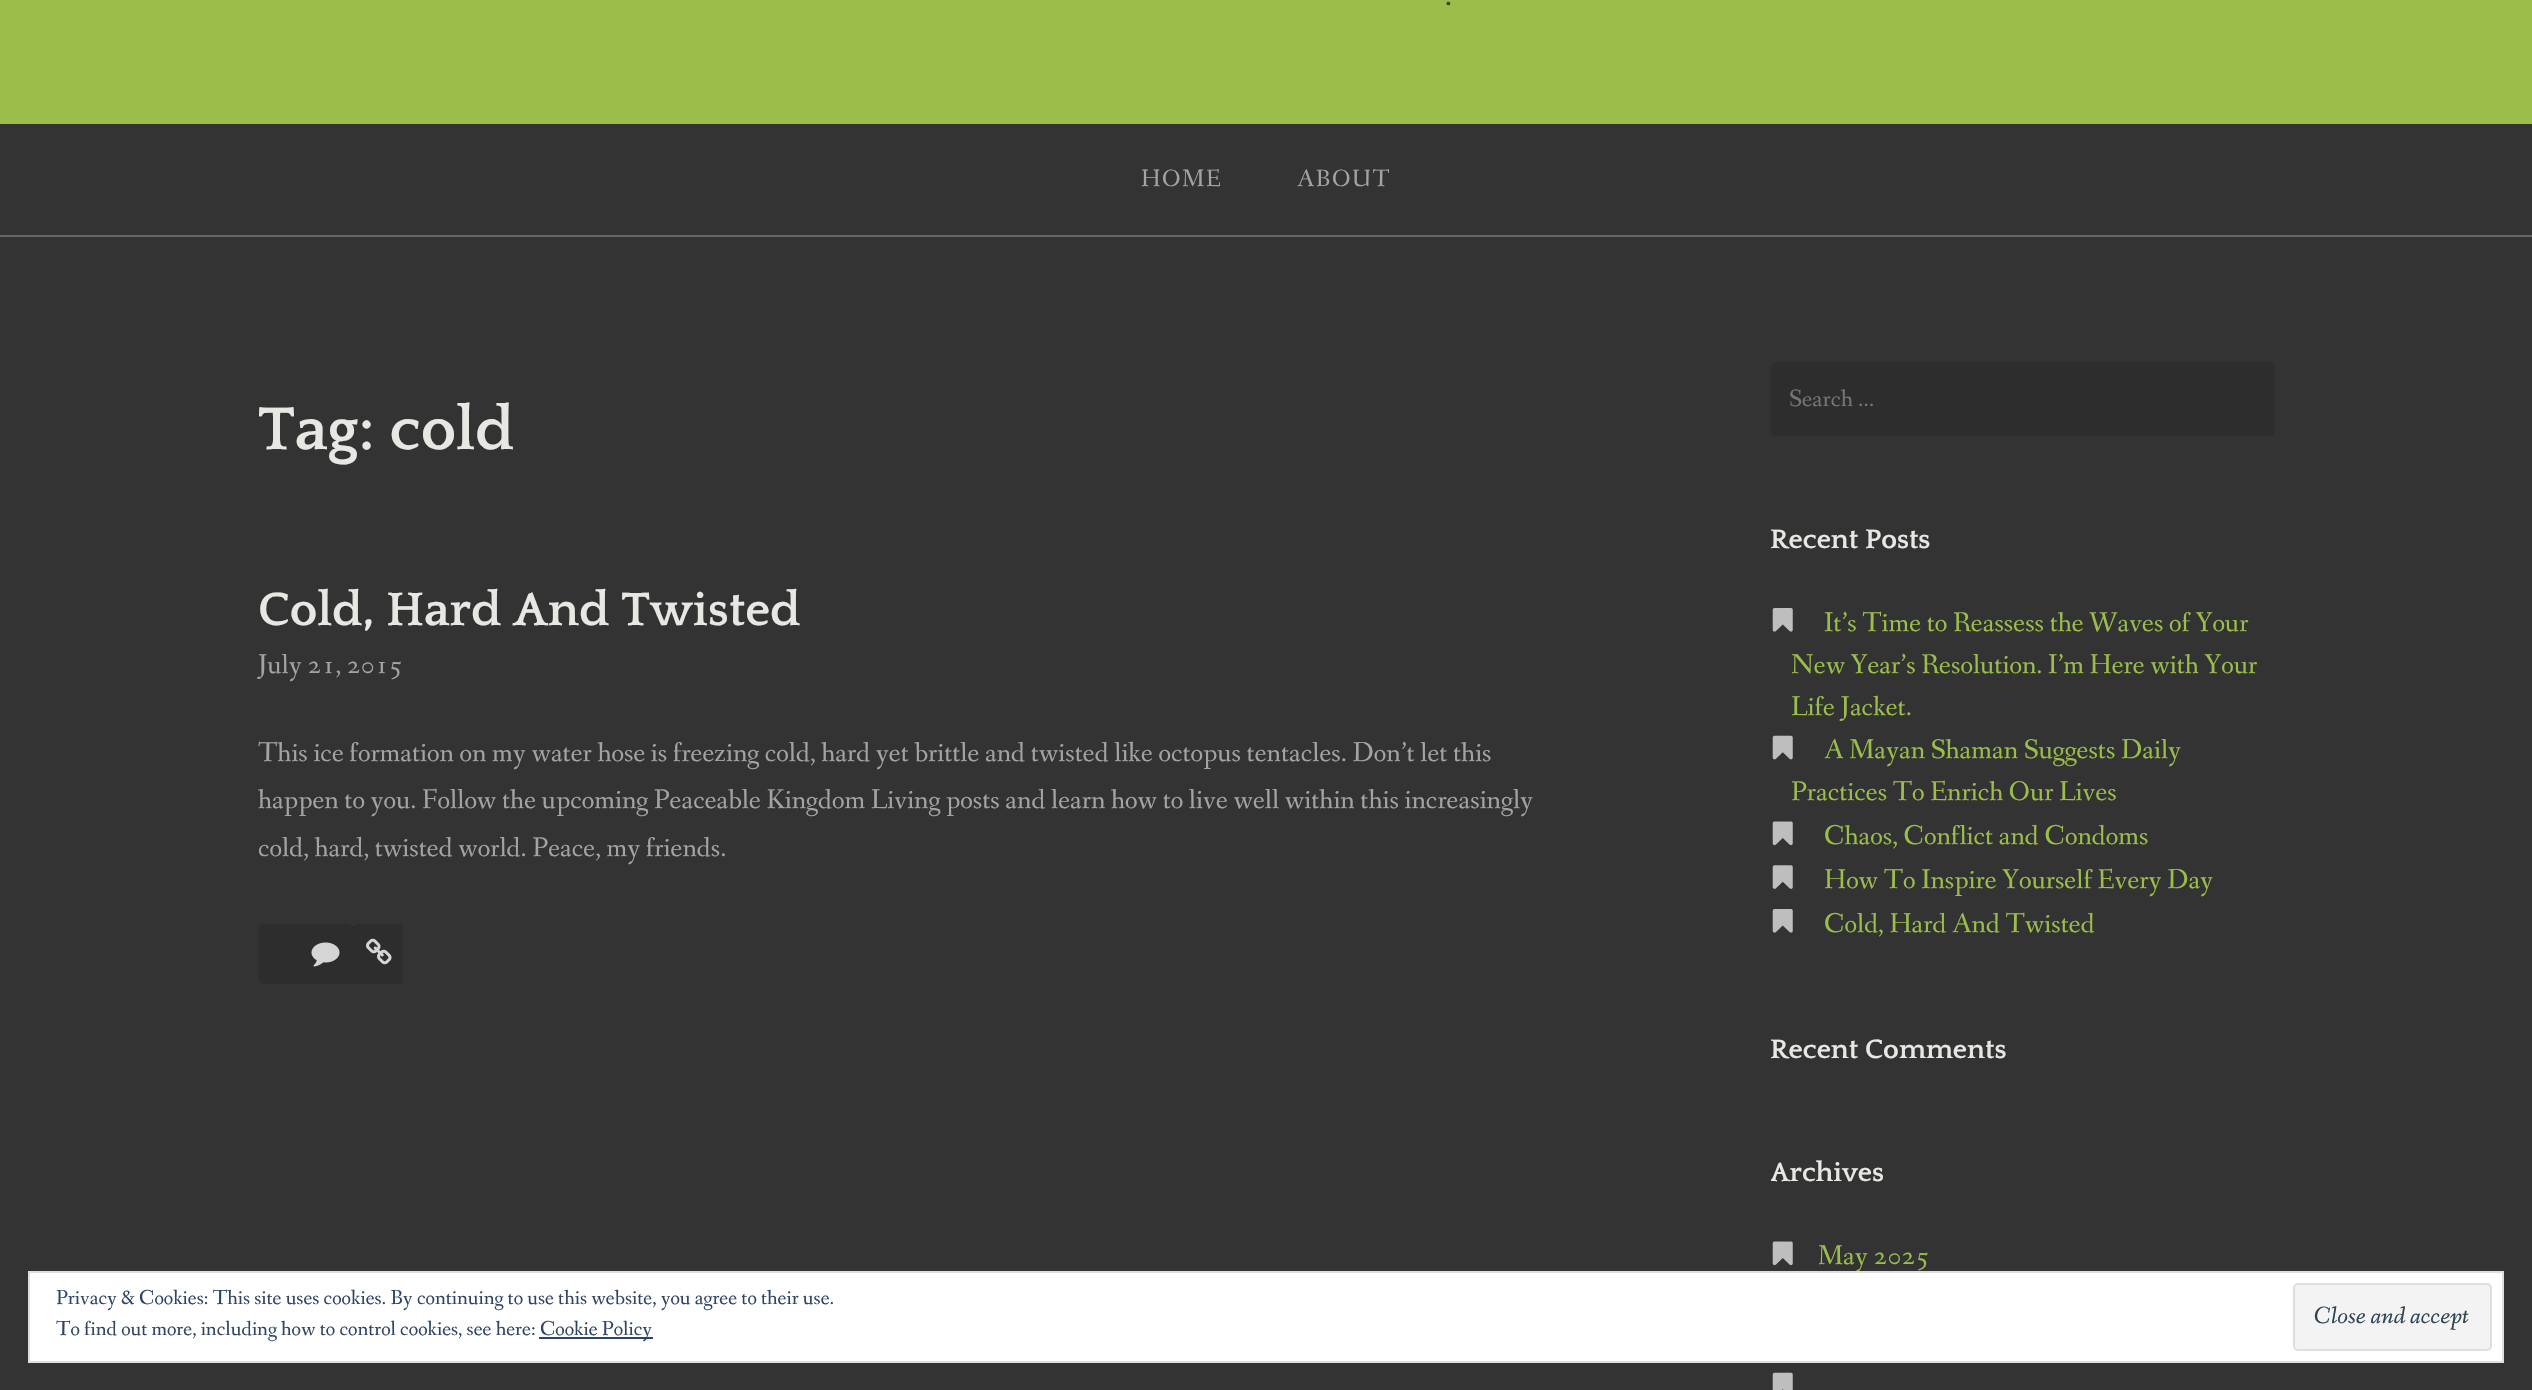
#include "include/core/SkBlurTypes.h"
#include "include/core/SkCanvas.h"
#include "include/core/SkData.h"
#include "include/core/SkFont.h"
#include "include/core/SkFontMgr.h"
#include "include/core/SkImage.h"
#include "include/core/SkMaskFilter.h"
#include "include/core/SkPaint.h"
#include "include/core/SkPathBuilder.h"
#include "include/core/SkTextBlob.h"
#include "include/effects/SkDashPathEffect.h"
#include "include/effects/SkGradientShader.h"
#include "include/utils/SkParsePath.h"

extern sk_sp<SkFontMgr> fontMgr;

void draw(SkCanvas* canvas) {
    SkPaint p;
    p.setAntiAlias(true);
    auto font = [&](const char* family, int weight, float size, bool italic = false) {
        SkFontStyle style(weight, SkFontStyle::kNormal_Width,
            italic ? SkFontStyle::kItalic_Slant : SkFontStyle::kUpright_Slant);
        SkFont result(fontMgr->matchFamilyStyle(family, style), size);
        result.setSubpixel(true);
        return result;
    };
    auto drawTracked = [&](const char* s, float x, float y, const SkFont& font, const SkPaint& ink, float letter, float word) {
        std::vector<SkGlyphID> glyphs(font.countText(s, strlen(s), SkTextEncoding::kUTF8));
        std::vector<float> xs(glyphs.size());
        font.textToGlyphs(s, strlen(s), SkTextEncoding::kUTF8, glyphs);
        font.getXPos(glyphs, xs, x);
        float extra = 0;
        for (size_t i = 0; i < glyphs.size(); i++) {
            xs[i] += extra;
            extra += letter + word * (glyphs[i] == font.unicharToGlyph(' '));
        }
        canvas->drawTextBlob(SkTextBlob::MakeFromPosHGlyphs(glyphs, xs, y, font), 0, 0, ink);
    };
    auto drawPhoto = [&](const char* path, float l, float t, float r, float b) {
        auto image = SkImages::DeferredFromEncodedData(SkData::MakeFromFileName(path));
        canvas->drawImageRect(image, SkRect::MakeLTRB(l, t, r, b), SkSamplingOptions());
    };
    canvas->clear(0xFF333333);
    p.setColor(0xFF9BBE4B);
    canvas->drawRect(SkRect::MakeLTRB(0, 0, 2532, 124), p);
    auto font1 = font("Quattrocento", 700, 28);
    p.setColor(0xFF3D3D3D);
    canvas->drawString(".", 1445, 5, font1, p);
    p.setColor(0xFF666666);
    canvas->drawRect(SkRect::MakeLTRB(0, 235, 2532, 237), p);
    auto font2 = font("Fanwood Text", 400, 24.5f);
    p.setColor(0xFFA3A3A3);
    drawTracked("HOME", 1141, 186, font2, p, 1.75f, 0);
    drawTracked("ABOUT", 1297, 186, font2, p, 1.75f, 0);
    auto font3 = font("Quattrocento", 700, 63);
    p.setColor(0xFFE7E7E3);
    canvas->drawString("Tag: cold", 258, 449, font3, p);
    auto font4 = font("Quattrocento", 700, 49);
    canvas->drawString("Cold, Hard And Twisted", 258, 625, font4, p);
    auto font5 = font("Fanwood Text", 400, 28);
    p.setColor(0xFFA3A3A3);
    {
        const struct { const char* s; float x, y; } items[] = {
            {"July 21, 2015", 258, 673},
            {"This ice formation on my water hose is freezing cold, hard yet brittle and twisted like octopus tentacles. Don’t let this", 258, 761},
            {"happen to you. Follow the upcoming Peaceable Kingdom Living posts and learn how to live well within this increasingly", 258, 808},
            {"cold, hard, twisted world. Peace, my friends.", 258, 856},
        };
        for (auto [s, x, y] : items) {
            canvas->drawString(s, x, y, font5, p);
        }
    }
    p.setColor(0xFF2D2D2D);
    canvas->drawPath(SkPathBuilder().moveTo(264, 924).lineTo(350, 924).lineTo(350, 984).lineTo(264, 984).cubicTo(261, 984, 259, 982, 259, 979).lineTo(259, 929).cubicTo(259, 926, 261, 924, 264, 924).close().detach(), p);
    canvas->drawRect(SkRect::MakeLTRB(350, 926, 355, 984), p);
    canvas->drawRect(SkRect::MakeLTRB(355, 924, 403, 984), p);
    drawPhoto("media/1.png", 311, 942, 340, 967);
    drawPhoto("media/2.png", 366, 938, 392, 965);
    canvas->drawRoundRect(SkRect::MakeLTRB(1771, 362, 2275, 436), 5, 5, p);
    p.setColor(0xFF757575);
    canvas->drawString("Search …", 1789, 406, font2, p);
    p.setColor(0xFFE7E7E3);
    canvas->drawString("Recent Posts", 1770, 548, font1, p);
    drawPhoto("media/3.png", 1772, 608, 1793, 632);
    p.setColor(0xFF9BBE4B);
    {
        const struct { const char* s; float x, y; } items[] = {
            {"It’s Time to Reassess the Waves of Your", 1824, 631},
            {"New Year’s Resolution. I’m Here with Your", 1791, 673},
            {"Life Jacket.", 1791, 715},
        };
        for (auto [s, x, y] : items) {
            canvas->drawString(s, x, y, font5, p);
        }
    }
    drawPhoto("media/4.png", 1772, 735, 1793, 760);
    canvas->drawString("A Mayan Shaman Suggests Daily", 1824, 758, font5, p);
    canvas->drawString("Practices To Enrich Our Lives", 1791, 800, font5, p);
    drawPhoto("media/5.png", 1772, 821, 1793, 846);
    canvas->drawString("Chaos, Conflict and Condoms", 1824, 844, font5, p);
    drawPhoto("media/6.png", 1772, 865, 1793, 889);
    canvas->drawString("How To Inspire Yourself Every Day", 1824, 888, font5, p);
    drawPhoto("media/3.png", 1772, 909, 1793, 933);
    canvas->drawString("Cold, Hard And Twisted", 1824, 932, font5, p);
    p.setColor(0xFFE7E7E3);
    canvas->drawString("Recent Comments", 1770, 1058, font1, p);
    canvas->save();
    canvas->clipRect(SkRect::MakeLTRB(1771, 362, 2275, 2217));
    canvas->drawString("Archives", 1770, 1181, font1, p);
    canvas->restore();
    drawPhoto("media/5.png", 1772, 1241, 1793, 1266);
    p.setColor(0xFF9BBE4B);
    canvas->drawString("May 2025", 1818, 1264, font5, p);
    drawPhoto("media/7.png", 1772, 1372, 1793, 1390);
    p.setColor(0xFFFFFFFF);
    canvas->drawRect(SkRect::MakeLTRB(29, 1272, 2503, 1362), p);
    p.setStyle(SkPaint::kStroke_Style);
    p.setStrokeWidth(2);
    p.setColor(0xFFDEDEDE);
    canvas->drawRect(SkRect::MakeLTRB(29, 1272, 2503, 1362), p);
    auto font6 = font("Fanwood Text", 400, 21);
    p.setStyle(SkPaint::kFill_Style);
    p.setColor(0xFF2E4467);
    canvas->drawString("Privacy & Cookies: This site uses cookies. By continuing to use this website, you agree to their use.", 56, 1304, font6, p);
    canvas->drawString("To find out more, including how to control cookies, see here:", 56, 1335, font6, p);
    canvas->drawRect(SkRect::MakeLTRB(539, 1337, 653, 1339), p);
    canvas->drawString("Cookie Policy", 540, 1335, font6, p);
    p.setColor(0xFFF3F3F3);
    canvas->drawRoundRect(SkRect::MakeLTRB(2294, 1284, 2491, 1350), 4, 4, p);
    p.setStyle(SkPaint::kStroke_Style);
    p.setColor(0xFFDEDEDE);
    canvas->drawRoundRect(SkRect::MakeLTRB(2294, 1284, 2491, 1350), 4, 4, p);
    auto font7 = font("Fanwood Text", 400, 24.5f, true);
    p.setStyle(SkPaint::kFill_Style);
    p.setColor(0xFF2E4453);
    canvas->drawString("Close and accept", 2314, 1323, font7, p);
}
